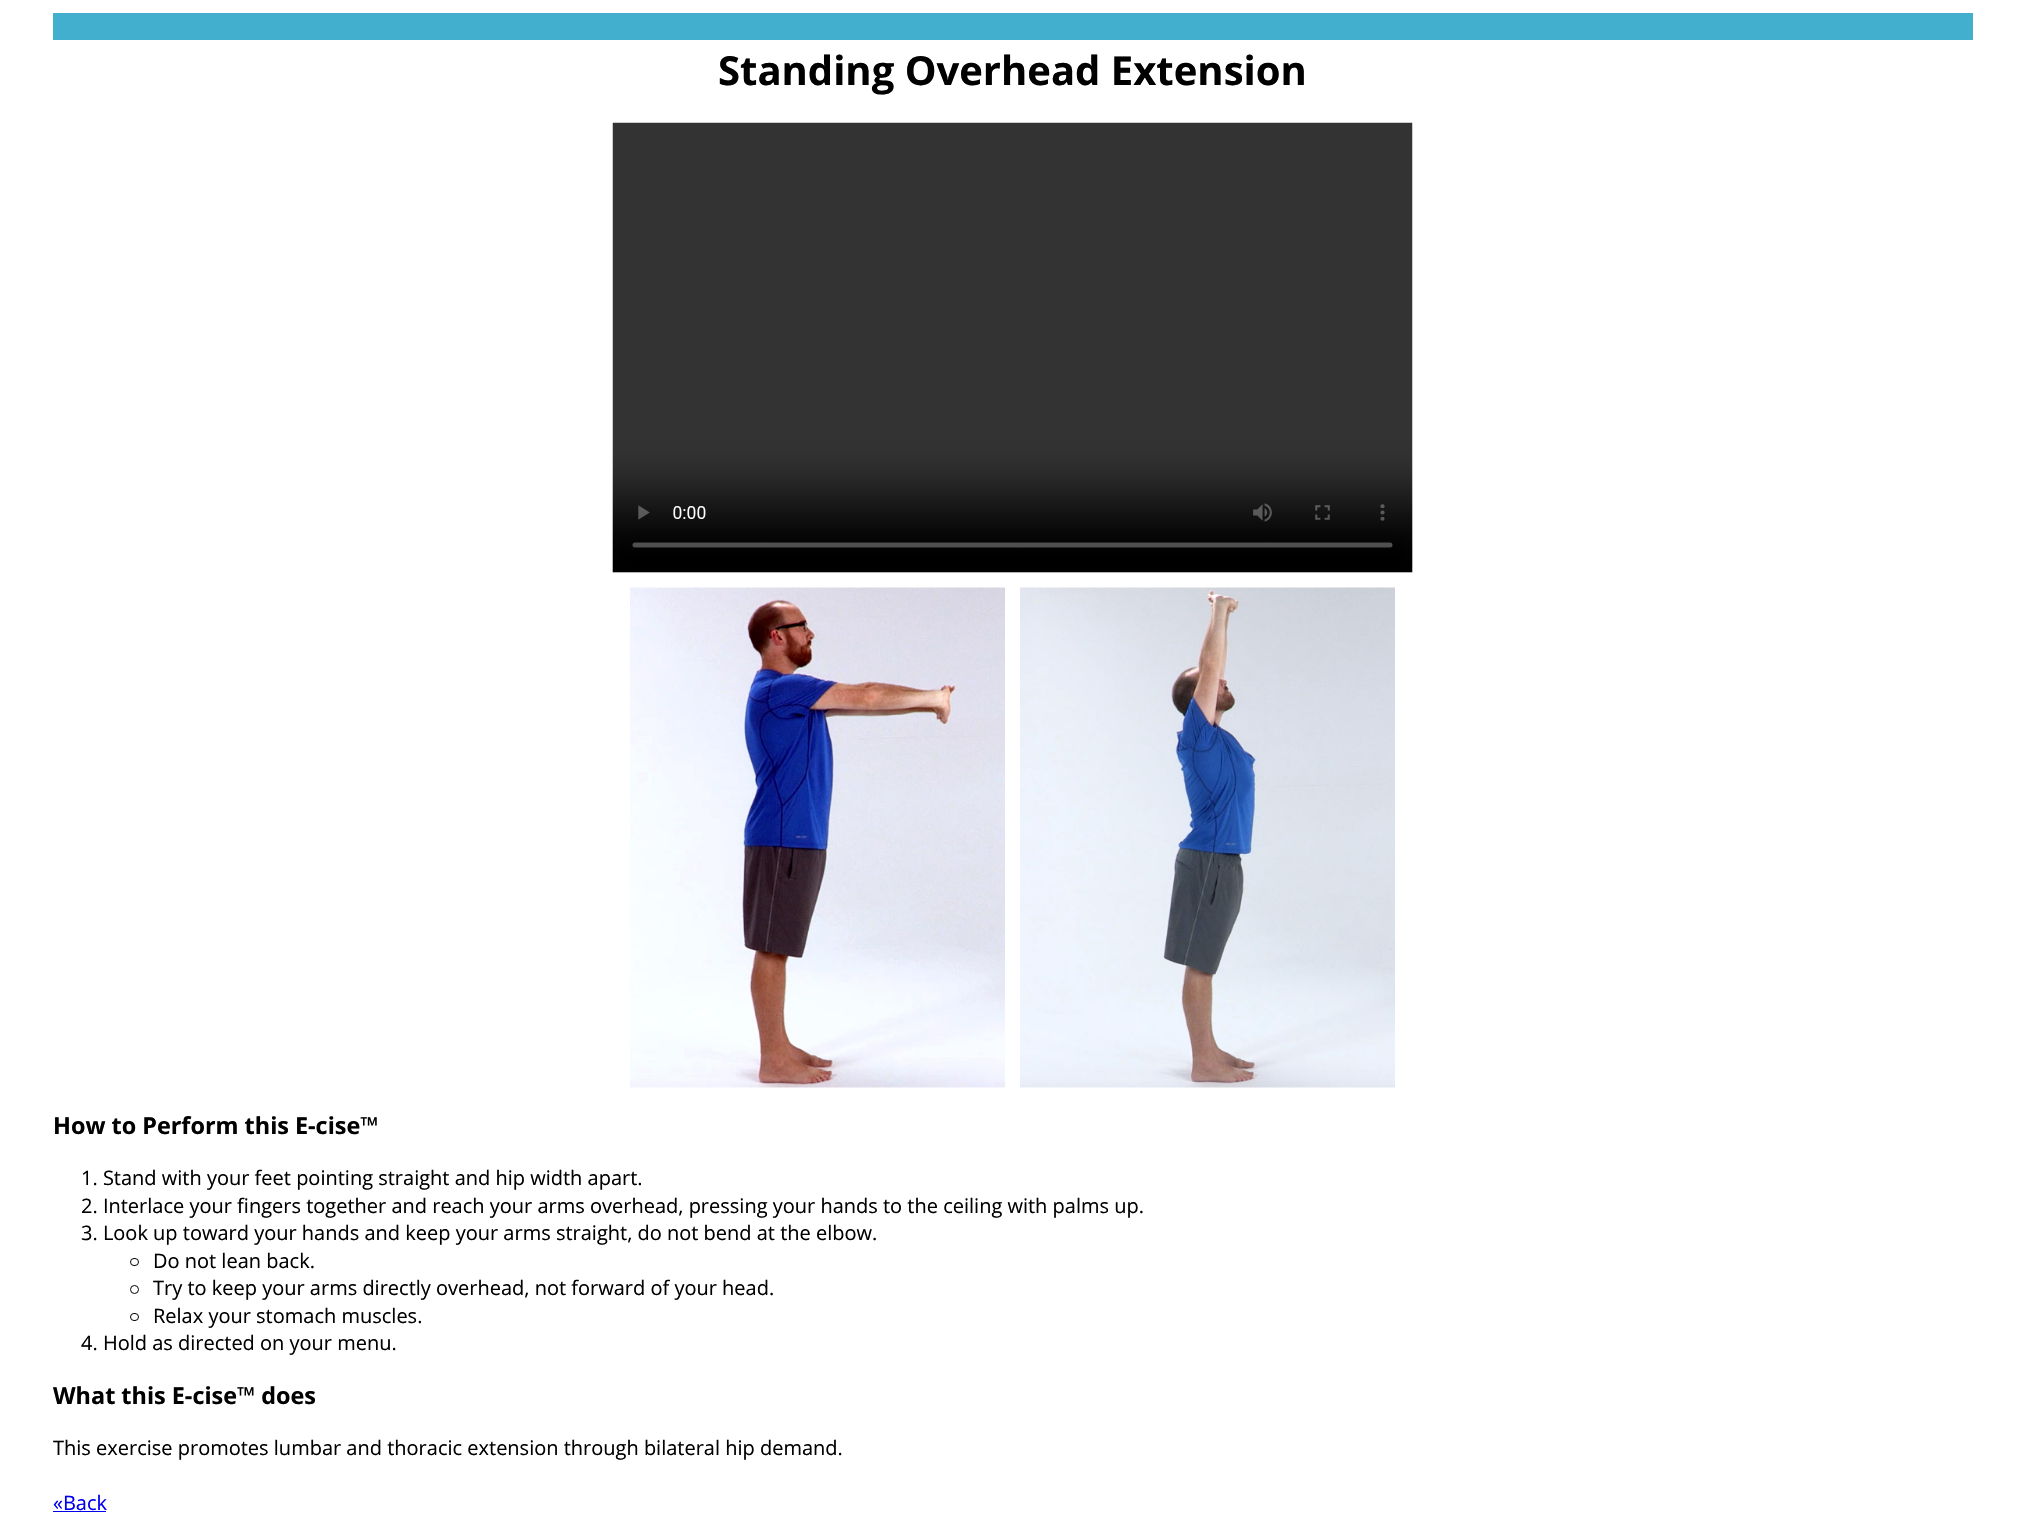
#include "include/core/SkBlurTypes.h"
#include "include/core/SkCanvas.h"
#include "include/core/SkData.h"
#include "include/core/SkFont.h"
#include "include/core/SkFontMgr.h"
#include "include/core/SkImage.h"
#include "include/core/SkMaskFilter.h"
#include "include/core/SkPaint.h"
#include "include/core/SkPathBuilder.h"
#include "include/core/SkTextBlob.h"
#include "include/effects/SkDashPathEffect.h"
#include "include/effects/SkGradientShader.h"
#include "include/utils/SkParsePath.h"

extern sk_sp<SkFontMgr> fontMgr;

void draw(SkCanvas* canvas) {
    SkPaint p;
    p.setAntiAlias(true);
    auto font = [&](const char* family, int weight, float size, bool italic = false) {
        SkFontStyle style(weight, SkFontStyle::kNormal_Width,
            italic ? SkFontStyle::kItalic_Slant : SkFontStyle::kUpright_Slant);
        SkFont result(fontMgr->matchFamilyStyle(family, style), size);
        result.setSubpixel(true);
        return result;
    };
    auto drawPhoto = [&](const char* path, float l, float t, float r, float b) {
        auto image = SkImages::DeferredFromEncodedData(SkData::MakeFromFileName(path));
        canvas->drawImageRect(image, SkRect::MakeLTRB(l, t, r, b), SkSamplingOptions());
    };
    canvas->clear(0xFFFFFFFF);
    p.setColor(0xFF43AFCF);
    canvas->drawRect(SkRect::MakeLTRB(53, 13, 1973, 40), p);
    auto font1 = font("Open Sans", 700, 40);
    p.setColor(0xFF000000);
    canvas->drawString("Standing Overhead Extension", 718, 85, font1, p);
    drawPhoto("media/1.png", 612, 122, 1413, 573);
    drawPhoto("media/2.png", 630, 587, 1005, 1088);
    drawPhoto("media/3.png", 1020, 587, 1395, 1088);
    auto font2 = font("Open Sans", 700, 23.4f);
    canvas->drawString("How to Perform this E-cise™", 53, 1134, font2, p);
    auto font3 = font("Open Sans", 400, 20);
    {
        const struct { const char* s; float x, y; } items[] = {
            {"1. Stand with your feet pointing straight and hip width apart.", 81, 1185},
            {"2. Interlace your fingers together and reach your arms overhead, pressing your hands to the ceiling with palms up.", 81, 1213},
            {"3. Look up toward your hands and keep your arms straight, do not bend at the elbow.", 81, 1240},
        };
        for (auto [s, x, y] : items) {
            canvas->drawString(s, x, y, font3, p);
        }
    }
    p.setStyle(SkPaint::kStroke_Style);
    p.setStrokeWidth(1);
    canvas->drawRoundRect(SkRect::MakeLTRB(130.5f, 1258.5f, 138.5f, 1265.5f), 3.5f, 3.5f, p);
    p.setStyle(SkPaint::kFill_Style);
    canvas->drawString("Do not lean back.", 153, 1268, font3, p);
    p.setStyle(SkPaint::kStroke_Style);
    canvas->drawCircle(134.5f, 1289.5f, 4, p);
    p.setStyle(SkPaint::kFill_Style);
    canvas->drawString("Try to keep your arms directly overhead, not forward of your head.", 153, 1295, font3, p);
    p.setStyle(SkPaint::kStroke_Style);
    canvas->drawRoundRect(SkRect::MakeLTRB(130.5f, 1313.5f, 138.5f, 1320.5f), 3.5f, 3.5f, p);
    p.setStyle(SkPaint::kFill_Style);
    canvas->drawString("Relax your stomach muscles.", 153, 1323, font3, p);
    canvas->drawString("4. Hold as directed on your menu.", 81, 1350, font3, p);
    canvas->drawString("What this E-cise™ does", 53, 1404, font2, p);
    canvas->drawString("This exercise promotes lumbar and thoracic extension through bilateral hip demand.", 53, 1455, font3, p);
    p.setColor(0xFF0000EE);
    canvas->drawString("«Back", 53, 1510, font3, p);
    canvas->drawRect(SkRect::MakeLTRB(53, 1511, 106, 1512), p);
}
